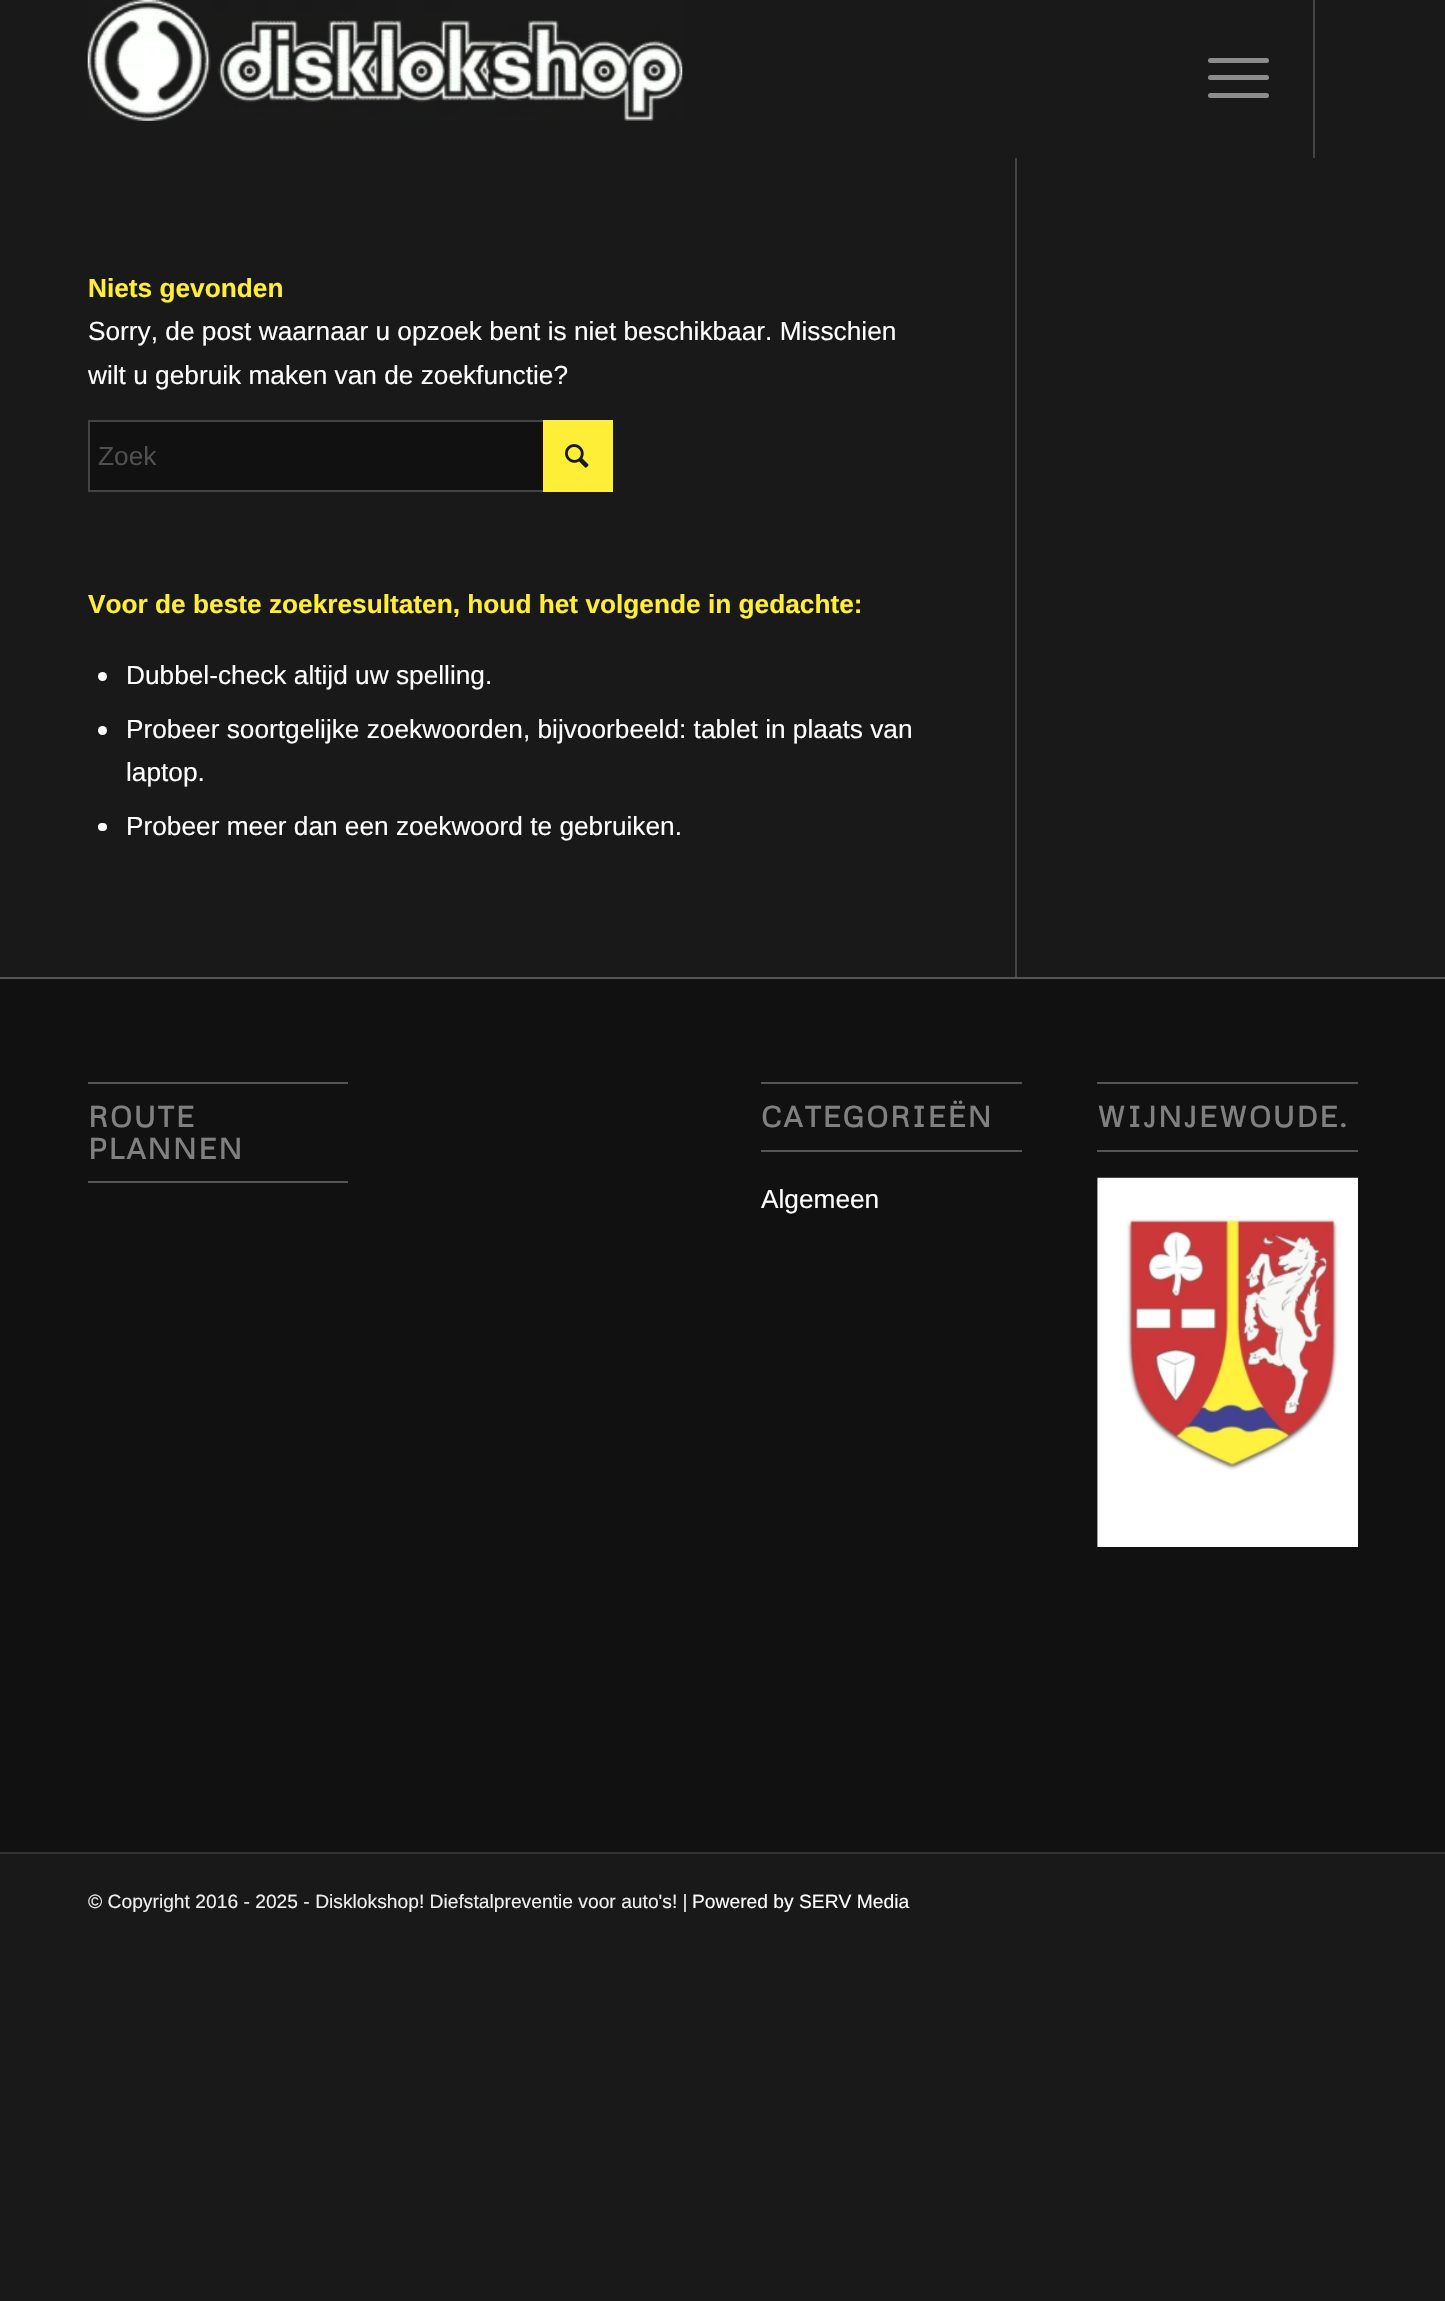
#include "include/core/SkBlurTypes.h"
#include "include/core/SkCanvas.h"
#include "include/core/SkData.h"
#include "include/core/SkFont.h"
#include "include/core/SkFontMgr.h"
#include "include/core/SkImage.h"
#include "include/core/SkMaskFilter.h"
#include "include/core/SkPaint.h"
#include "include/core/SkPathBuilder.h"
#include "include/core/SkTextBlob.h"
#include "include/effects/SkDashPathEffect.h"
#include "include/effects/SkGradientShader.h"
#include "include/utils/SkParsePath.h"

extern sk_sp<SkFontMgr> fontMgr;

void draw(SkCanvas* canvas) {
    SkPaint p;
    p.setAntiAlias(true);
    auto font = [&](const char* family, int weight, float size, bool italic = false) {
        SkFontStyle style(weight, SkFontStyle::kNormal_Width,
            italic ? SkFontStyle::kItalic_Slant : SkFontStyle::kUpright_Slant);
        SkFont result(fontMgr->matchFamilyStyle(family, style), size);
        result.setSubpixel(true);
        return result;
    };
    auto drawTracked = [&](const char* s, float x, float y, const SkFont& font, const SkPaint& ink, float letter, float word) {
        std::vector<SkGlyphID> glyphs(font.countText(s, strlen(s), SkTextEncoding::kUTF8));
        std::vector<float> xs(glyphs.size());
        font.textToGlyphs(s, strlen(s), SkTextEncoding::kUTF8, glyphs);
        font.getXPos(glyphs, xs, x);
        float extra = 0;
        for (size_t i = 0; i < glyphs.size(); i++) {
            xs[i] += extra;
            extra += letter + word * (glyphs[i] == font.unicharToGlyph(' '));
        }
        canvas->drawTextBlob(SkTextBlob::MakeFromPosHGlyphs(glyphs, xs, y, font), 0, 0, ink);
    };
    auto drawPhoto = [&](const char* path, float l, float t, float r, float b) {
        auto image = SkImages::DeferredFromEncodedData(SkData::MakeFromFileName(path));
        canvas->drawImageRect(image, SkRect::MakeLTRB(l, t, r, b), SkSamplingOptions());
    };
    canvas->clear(0xFF191919);
    drawPhoto("media/1.png", 87, 0, 683, 121);
    p.setColor(0xFF444444);
    canvas->drawRect(SkRect::MakeLTRB(1313, 0, 1315, 158), p);
    p.setColor(0xFF8C8C8C);
    canvas->drawRoundRect(SkRect::MakeLTRB(1208, 75, 1269, 80), 2.5f, 2.5f, p);
    canvas->drawRoundRect(SkRect::MakeLTRB(1208, 58, 1269, 63), 2.5f, 2.5f, p);
    canvas->drawRoundRect(SkRect::MakeLTRB(1208, 93, 1269, 98), 2.5f, 2.5f, p);
    p.setColor(0xFF444444);
    canvas->drawRect(SkRect::MakeLTRB(1015, 158, 1017, 977), p);
    auto font1 = font("Liberation Sans", 700, 26.25f);
    p.setColor(0xFFFFEE38);
    canvas->drawString("Niets gevonden", 88, 297, font1, p);
    auto font2 = font("Liberation Sans", 400, 26.25f);
    p.setColor(0xFFFFFFFF);
    canvas->drawString("Sorry, de post waarnaar u opzoek bent is niet beschikbaar. Misschien", 88, 340, font2, p);
    canvas->drawString("wilt u gebruik maken van de zoekfunctie?", 88, 384, font2, p);
    p.setColor(0xFF111111);
    canvas->drawRect(SkRect::MakeLTRB(90, 422, 543, 490), p);
    p.setStyle(SkPaint::kStroke_Style);
    p.setStrokeWidth(2);
    p.setColor(0xFF444444);
    canvas->drawRect(SkRect::MakeLTRB(89, 421, 612, 491), p);
    p.setStyle(SkPaint::kFill_Style);
    p.setColor(0xFFFFEE38);
    canvas->drawRect(SkRect::MakeLTRB(543, 420, 613, 492), p);
    p.setColor(0xFF4F4F4F);
    canvas->drawString("Zoek", 98, 465, font2, p);
    drawPhoto("media/2.png", 565, 444, 589, 468);
    p.setColor(0xFFFFEE38);
    canvas->drawString("Voor de beste zoekresultaten, houd het volgende in gedachte:", 88, 613, font1, p);
    p.setColor(0xFFFFFFFF);
    canvas->drawCircle(102.5f, 676.5f, 4.5f, p);
    canvas->drawString("Dubbel-check altijd uw spelling.", 126, 684, font2, p);
    canvas->drawCircle(102.5f, 730.5f, 4.5f, p);
    canvas->drawString("Probeer soortgelijke zoekwoorden, bijvoorbeeld: tablet in plaats van", 126, 738, font2, p);
    canvas->drawString("laptop.", 126, 781, font2, p);
    canvas->drawRoundRect(SkRect::MakeLTRB(98, 823, 107, 831), 4, 4, p);
    canvas->drawString("Probeer meer dan een zoekwoord te gebruiken.", 126, 835, font2, p);
    {
        const struct { float l, t, r, b; SkColor color; } items[] = {
            {0, 979, 1445, 1852, 0xFF111111},
            {0, 977, 1445, 979, 0xFF555555},
            {88, 1082, 348, 1084, 0xFF555555},
            {88, 1181, 348, 1183, 0xFF555555},
        };
        for (auto [l, t, r, b, color] : items) {
            p.setColor(color);
            canvas->drawRect(SkRect::MakeLTRB(l, t, r, b), p);
        }
    }
    auto font3 = font("Metrophobic", 700, 28.9f);
    p.setColor(0xFF808080);
    drawTracked("ROUTE", 88, 1127, font3, p, 1.75f, 0);
    drawTracked("PLANNEN", 88, 1159, font3, p, 1.75f, 0);
    p.setColor(0xFF555555);
    canvas->drawRect(SkRect::MakeLTRB(761, 1082, 1022, 1084), p);
    canvas->drawRect(SkRect::MakeLTRB(761, 1150, 1022, 1152), p);
    p.setColor(0xFF808080);
    drawTracked("CATEGORIEËN", 761, 1127, font3, p, 1.75f, 0);
    p.setColor(0xFFFFFFFF);
    canvas->drawString("Algemeen", 761, 1208, font2, p);
    p.setColor(0xFF555555);
    canvas->drawRect(SkRect::MakeLTRB(1097, 1082, 1358, 1084), p);
    canvas->drawRect(SkRect::MakeLTRB(1097, 1150, 1358, 1152), p);
    p.setColor(0xFF808080);
    drawTracked("WIJNJEWOUDE.", 1097, 1127, font3, p, 1.75f, 0);
    drawPhoto("media/3.png", 1097, 1177, 1358, 1547);
    p.setColor(0xFF333333);
    canvas->drawRect(SkRect::MakeLTRB(0, 1852, 1445, 1854), p);
    auto font4 = font("Liberation Sans", 400, 19.25f);
    p.setColor(0xFFEEEEEE);
    canvas->drawString("© Copyright 2016 - 2025 - Disklokshop! Diefstalpreventie voor auto's! |", 88, 1908, font4, p);
    p.setColor(0xFFFFFFFF);
    canvas->drawString("Powered by SERV Media", 692, 1908, font4, p);
}
